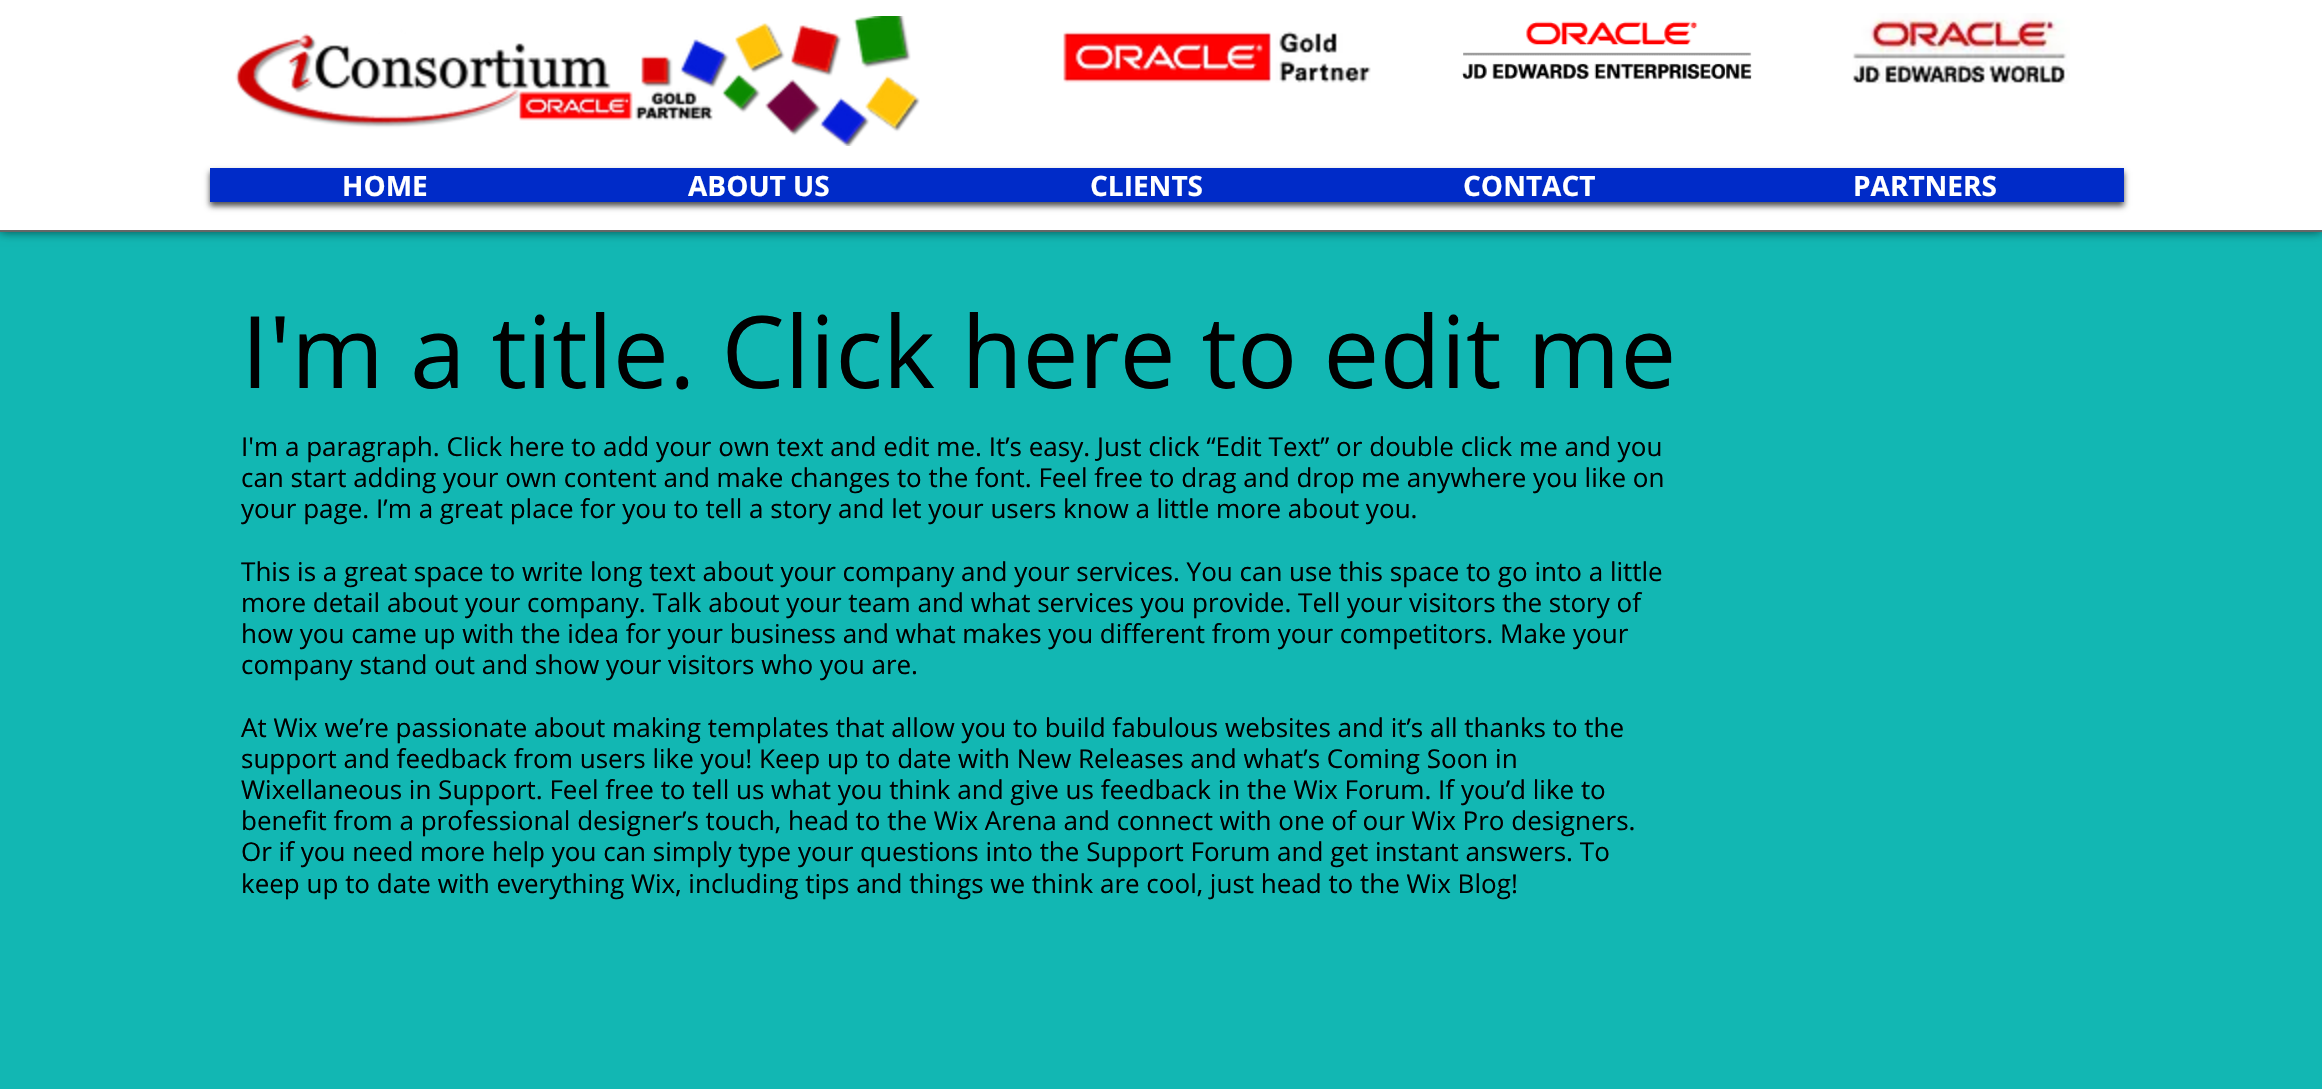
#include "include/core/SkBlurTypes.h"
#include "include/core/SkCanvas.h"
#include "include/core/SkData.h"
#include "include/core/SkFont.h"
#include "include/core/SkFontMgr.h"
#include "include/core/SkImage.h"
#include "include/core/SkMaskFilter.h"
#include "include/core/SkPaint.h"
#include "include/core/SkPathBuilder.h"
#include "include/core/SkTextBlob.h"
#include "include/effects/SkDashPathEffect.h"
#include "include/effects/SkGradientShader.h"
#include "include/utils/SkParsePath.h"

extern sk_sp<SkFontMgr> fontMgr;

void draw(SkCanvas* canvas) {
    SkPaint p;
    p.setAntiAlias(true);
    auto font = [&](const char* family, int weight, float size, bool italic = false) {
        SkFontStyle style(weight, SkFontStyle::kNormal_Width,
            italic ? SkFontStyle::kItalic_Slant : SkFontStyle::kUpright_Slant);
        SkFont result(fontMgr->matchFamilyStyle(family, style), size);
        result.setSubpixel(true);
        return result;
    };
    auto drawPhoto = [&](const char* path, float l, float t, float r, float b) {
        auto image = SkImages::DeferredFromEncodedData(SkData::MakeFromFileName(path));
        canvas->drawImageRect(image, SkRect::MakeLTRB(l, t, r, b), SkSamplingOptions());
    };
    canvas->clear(0xFF12B7B3);
    p.setColor(0x99000000);
    p.setMaskFilter(SkMaskFilter::MakeBlur(kNormal_SkBlurStyle, 5));
    canvas->drawRect(SkRect::MakeLTRB(0, 0, 2322, 232), p);
    p.setMaskFilter(nullptr);
    p.setColor(0xFFFFFFFF);
    canvas->drawRect(SkRect::MakeLTRB(0, 0, 2322, 230), p);
    p.setColor(0xFF666666);
    canvas->drawRect(SkRect::MakeLTRB(0, 230, 2322, 232), p);
    drawPhoto("media/1.png", 235, 16, 920, 146);
    drawPhoto("media/2.png", 1063, 31, 1371, 83);
    drawPhoto("media/3.png", 1461, 21, 1752, 80);
    drawPhoto("media/4.png", 1852, 13, 2070, 84);
    p.setColor(0xB3000000);
    p.setMaskFilter(SkMaskFilter::MakeBlur(kNormal_SkBlurStyle, 3));
    canvas->drawRect(SkRect::MakeLTRB(210, 172, 2124, 206), p);
    p.setMaskFilter(nullptr);
    p.setColor(0xFF002BC8);
    canvas->drawRect(SkRect::MakeLTRB(210, 168, 2124, 202), p);
    auto font1 = font("Open Sans", 700, 28);
    p.setColor(0xFFFFFFFF);
    {
        const struct { const char* s; float x, y; } items[] = {
            {"HOME", 342, 196},
            {"ABOUT US", 688, 196},
            {"CLIENTS", 1090, 196},
            {"CONTACT", 1463, 196},
            {"PARTNERS", 1853, 196},
        };
        for (auto [s, x, y] : items) {
            canvas->drawString(s, x, y, font1, p);
        }
    }
    auto font2 = font("Open Sans", 400, 100);
    p.setColor(0xFF000000);
    canvas->drawString("I'm a title. Click here to edit me", 241, 388, font2, p);
    auto font3 = font("Open Sans", 400, 26);
    {
        const struct { const char* s; float x, y; } items[] = {
            {"I'm a paragraph. Click here to add your own text and edit me. It’s easy. Just click “Edit Text” or double click me and you", 241, 456},
            {"can start adding your own content and make changes to the font. Feel free to drag and drop me anywhere you like on", 241, 487},
            {"your page. I’m a great place for you to tell a story and let your users know a little more about you.", 241, 518},
            {"This is a great space to write long text about your company and your services. You can use this space to go into a little", 241, 581},
            {"more detail about your company. Talk about your team and what services you provide. Tell your visitors the story of", 241, 612},
            {"how you came up with the idea for your business and what makes you different from your competitors. Make your", 241, 643},
            {"company stand out and show your visitors who you are.", 241, 674},
            {"At Wix we’re passionate about making templates that allow you to build fabulous websites and it’s all thanks to the", 241, 737},
            {"support and feedback from users like you! Keep up to date with New Releases and what’s Coming Soon in", 241, 768},
            {"Wixellaneous in Support. Feel free to tell us what you think and give us feedback in the Wix Forum. If you’d like to", 241, 799},
            {"benefit from a professional designer’s touch, head to the Wix Arena and connect with one of our Wix Pro designers.", 241, 830},
            {"Or if you need more help you can simply type your questions into the Support Forum and get instant answers. To", 241, 861},
            {"keep up to date with everything Wix, including tips and things we think are cool, just head to the Wix Blog!", 241, 893},
        };
        for (auto [s, x, y] : items) {
            canvas->drawString(s, x, y, font3, p);
        }
    }
}
